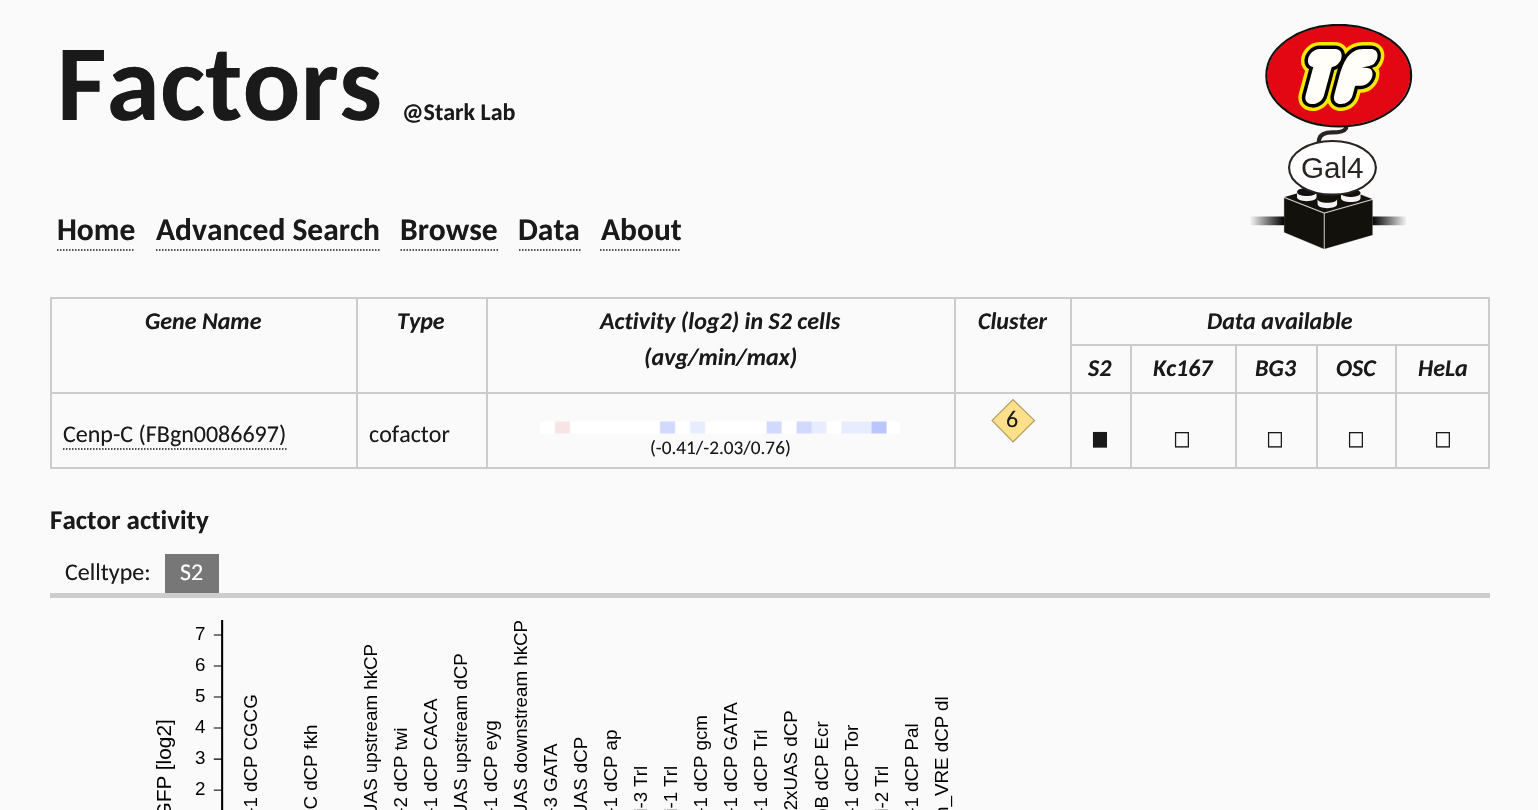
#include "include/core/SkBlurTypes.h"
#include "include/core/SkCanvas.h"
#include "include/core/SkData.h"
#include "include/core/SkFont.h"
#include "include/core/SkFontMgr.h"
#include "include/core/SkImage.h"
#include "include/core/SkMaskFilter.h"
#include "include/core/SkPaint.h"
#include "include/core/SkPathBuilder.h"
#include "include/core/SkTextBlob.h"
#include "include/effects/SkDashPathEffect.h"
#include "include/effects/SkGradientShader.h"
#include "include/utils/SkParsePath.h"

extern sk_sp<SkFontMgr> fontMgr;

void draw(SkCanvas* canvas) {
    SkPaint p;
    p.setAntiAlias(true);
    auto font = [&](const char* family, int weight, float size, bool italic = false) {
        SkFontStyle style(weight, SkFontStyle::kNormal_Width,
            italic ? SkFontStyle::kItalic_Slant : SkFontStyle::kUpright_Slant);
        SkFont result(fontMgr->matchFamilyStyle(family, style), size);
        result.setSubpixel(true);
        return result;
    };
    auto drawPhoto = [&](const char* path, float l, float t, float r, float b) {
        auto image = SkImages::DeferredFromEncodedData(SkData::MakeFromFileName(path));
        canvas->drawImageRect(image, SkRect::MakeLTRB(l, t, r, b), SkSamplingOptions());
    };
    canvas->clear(0xFFFAFAFA);
    auto font1 = font("Carlito", 700, 108);
    p.setColor(0xFF1A1A1A);
    canvas->drawString("Factors", 57, 120, font1, p);
    auto font2 = font("Carlito", 700, 24);
    canvas->drawString("@Stark Lab", 402, 120, font2, p);
    auto font3 = font("Carlito", 700, 31.5f);
    canvas->drawString("Home", 57, 240, font3, p);
    p.setStyle(SkPaint::kStroke_Style);
    p.setStrokeWidth(1.5f);
    p.setPathEffect(SkDashPathEffect::Make({{1.5f, 1.5f}}, 0));
    canvas->drawPath(SkPathBuilder().moveTo(57, 250).lineTo(135, 250).detach(), p);
    p.setPathEffect(nullptr);
    p.setStyle(SkPaint::kFill_Style);
    canvas->drawString("Advanced Search", 156, 240, font3, p);
    p.setStyle(SkPaint::kStroke_Style);
    p.setPathEffect(SkDashPathEffect::Make({{1.5f, 1.5f}}, 0));
    canvas->drawPath(SkPathBuilder().moveTo(156, 250).lineTo(379.5f, 250).detach(), p);
    p.setPathEffect(nullptr);
    p.setStyle(SkPaint::kFill_Style);
    canvas->drawString("Browse", 400, 240, font3, p);
    p.setStyle(SkPaint::kStroke_Style);
    p.setPathEffect(SkDashPathEffect::Make({{1.5f, 1.5f}}, 0));
    canvas->drawPath(SkPathBuilder().moveTo(400.5f, 250).lineTo(498, 250).detach(), p);
    p.setPathEffect(nullptr);
    p.setStyle(SkPaint::kFill_Style);
    canvas->drawString("Data", 518, 240, font3, p);
    p.setStyle(SkPaint::kStroke_Style);
    p.setPathEffect(SkDashPathEffect::Make({{1.5f, 1.5f}}, 0));
    canvas->drawPath(SkPathBuilder().moveTo(519, 250).lineTo(580.5f, 250).detach(), p);
    p.setPathEffect(nullptr);
    p.setStyle(SkPaint::kFill_Style);
    canvas->drawString("About", 601, 240, font3, p);
    p.setStyle(SkPaint::kStroke_Style);
    p.setPathEffect(SkDashPathEffect::Make({{1.5f, 1.5f}}, 0));
    canvas->drawPath(SkPathBuilder().moveTo(600, 250).lineTo(681, 250).detach(), p);
    p.setPathEffect(nullptr);
    drawPhoto("media/1.png", 1250, 24, 1413, 249);
    p.setStyle(SkPaint::kFill_Style);
    {
        const struct { float l, t, r, b; SkColor color; } items[] = {
            {1070, 297, 1490, 299, 0xFFCCCCCC},
            {1395, 344, 1490, 346, 0xFFCCCCCC},
            {1395, 392, 1490, 394, 0xFFCCCCCC},
            {1488, 392, 1490, 468, 0xFFCCCCCC},
            {1395, 467, 1490, 469, 0xFFCCCCCC},
            {1395, 392, 1397, 468, 0xFFCCCCCC},
            {1316, 392, 1397, 394, 0xFFCCCCCC},
            {1395, 344, 1397, 393, 0xFFCCCCCC},
            {1316, 344, 1397, 346, 0xFFCCCCCC},
            {1316, 467, 1397, 469, 0xFFCCCCCC},
            {1316, 392, 1318, 468, 0xFFCCCCCC},
            {1235, 392, 1317, 394, 0xFFCCCCCC},
            {1316, 344, 1318, 393, 0xFFCCCCCC},
            {1235, 344, 1317, 346, 0xFFCCCCCC},
            {1235, 467, 1317, 469, 0xFFCCCCCC},
            {1235, 392, 1237, 468, 0xFFCCCCCC},
            {1130, 392, 1236, 394, 0xFFCCCCCC},
            {1235, 344, 1237, 393, 0xFFCCCCCC},
            {1130, 344, 1236, 346, 0xFFCCCCCC},
            {1130, 467, 1236, 469, 0xFFCCCCCC},
            {1130, 392, 1132, 468, 0xFFCCCCCC},
            {1070, 392, 1131, 394, 0xFFCCCCCC},
            {1130, 344, 1132, 393, 0xFFCCCCCC},
            {1070, 344, 1131, 346, 0xFFCCCCCC},
            {1070, 467, 1131, 469, 0xFFCCCCCC},
            {1070, 392, 1072, 468, 0xFFCCCCCC},
            {954, 392, 1071, 394, 0xFFCCCCCC},
            {1070, 344, 1072, 393, 0xFFCCCCCC},
            {1070, 297, 1072, 345, 0xFFCCCCCC},
            {954, 297, 1071, 299, 0xFFCCCCCC},
            {954, 467, 1071, 469, 0xFFCCCCCC},
            {954, 392, 956, 468, 0xFFCCCCCC},
            {486, 392, 956, 394, 0xFFCCCCCC},
            {954, 297, 956, 393, 0xFFCCCCCC},
            {486, 297, 956, 299, 0xFFCCCCCC},
            {486, 467, 956, 469, 0xFFCCCCCC},
            {486, 392, 488, 468, 0xFFCCCCCC},
            {356, 392, 488, 394, 0xFFCCCCCC},
            {486, 297, 488, 393, 0xFFCCCCCC},
            {356, 297, 488, 299, 0xFFCCCCCC},
            {356, 467, 488, 469, 0xFFCCCCCC},
            {356, 392, 358, 468, 0xFFCCCCCC},
            {50, 392, 357, 394, 0xFFCCCCCC},
            {356, 297, 358, 393, 0xFFCCCCCC},
            {50, 297, 357, 299, 0xFFCCCCCC},
            {50, 467, 357, 469, 0xFFCCCCCC},
            {50, 392, 52, 468, 0xFFCCCCCC},
            {50, 297, 52, 393, 0xFFCCCCCC},
        };
        for (auto [l, t, r, b, color] : items) {
            p.setColor(color);
            canvas->drawRect(SkRect::MakeLTRB(l, t, r, b), p);
        }
    }
    auto font4 = font("Carlito", 700, 24, true);
    p.setColor(0xFF1A1A1A);
    {
        const struct { const char* s; float x, y; } items[] = {
            {"Gene Name", 145, 329},
            {"Type", 397, 329},
            {"Activity (log2) in S2 cells", 600, 329},
            {"(avg/min/max)", 644, 365},
            {"Cluster", 978, 329},
        };
        for (auto [s, x, y] : items) {
            canvas->drawString(s, x, y, font4, p);
        }
    }
    p.setColor(0xFFCCCCCC);
    canvas->drawRect(SkRect::MakeLTRB(1488, 344, 1490, 393), p);
    canvas->drawRect(SkRect::MakeLTRB(1488, 297, 1490, 345), p);
    p.setColor(0xFF1A1A1A);
    {
        const struct { const char* s; float x, y; } items[] = {
            {"Data available", 1207, 329},
            {"S2", 1088, 376},
            {"Kc167", 1153, 376},
            {"BG3", 1255, 376},
            {"OSC", 1336, 376},
            {"HeLa", 1418, 376},
        };
        for (auto [s, x, y] : items) {
            canvas->drawString(s, x, y, font4, p);
        }
    }
    p.setColor(0xFFFEE08B);
    canvas->drawPath(SkPathBuilder().moveTo(1013, 442).lineTo(1035, 421).lineTo(1013, 399).lineTo(992, 421).close().detach(), p);
    p.setStyle(SkPaint::kStroke_Style);
    p.setStrokeWidth(1.1f);
    p.setColor(0xFFB29D61);
    canvas->drawPath(SkPathBuilder().moveTo(1013, 442).lineTo(1034.5f, 420.5f).lineTo(1013, 399.5f).lineTo(992, 420.5f).close().detach(), p);
    auto font5 = font("Carlito", 400, 24);
    p.setStyle(SkPaint::kFill_Style);
    p.setColor(0xFF1A1A1A);
    canvas->drawString("6", 1006, 427, font5, p);
    canvas->drawString("Cenp-C (FBgn0086697)", 63, 442, font5, p);
    p.setStyle(SkPaint::kStroke_Style);
    p.setStrokeWidth(1.5f);
    p.setPathEffect(SkDashPathEffect::Make({{1.5f, 1.5f}}, 0));
    canvas->drawPath(SkPathBuilder().moveTo(63, 449).lineTo(286.5f, 449).detach(), p);
    p.setPathEffect(nullptr);
    p.setStyle(SkPaint::kFill_Style);
    canvas->drawString("cofactor", 369, 442, font5, p);
    drawPhoto("media/2.png", 540, 421, 900, 434);
    auto font6 = font("Carlito", 400, 19.25f);
    canvas->drawString("(-0.41/-2.03/0.76)", 650, 454, font6, p);
    auto font7 = font("DejaVu Sans", 400, 24);
    {
        const struct { const char* s; float x, y; } items[] = {
            {"◼", 1091, 446},
            {"◻", 1173, 446},
            {"◻", 1266, 446},
            {"◻", 1347, 446},
            {"◻", 1434, 446},
        };
        for (auto [s, x, y] : items) {
            canvas->drawString(s, x, y, font7, p);
        }
    }
    auto font8 = font("Carlito", 700, 27);
    canvas->drawString("Factor activity", 50, 529, font8, p);
    canvas->drawString("Celltype:", 65, 580, font5, p);
    p.setColor(0xFF777777);
    canvas->drawRect(SkRect::MakeLTRB(165, 554, 219, 593), p);
    p.setColor(0xFFFFFFFF);
    canvas->drawString("S2", 180, 580, font5, p);
    p.setColor(0xFFCCCCCC);
    canvas->drawRect(SkRect::MakeLTRB(50, 593, 1490, 598), p);
    drawPhoto("media/3.png", 156, 620, 953, 810);
}
